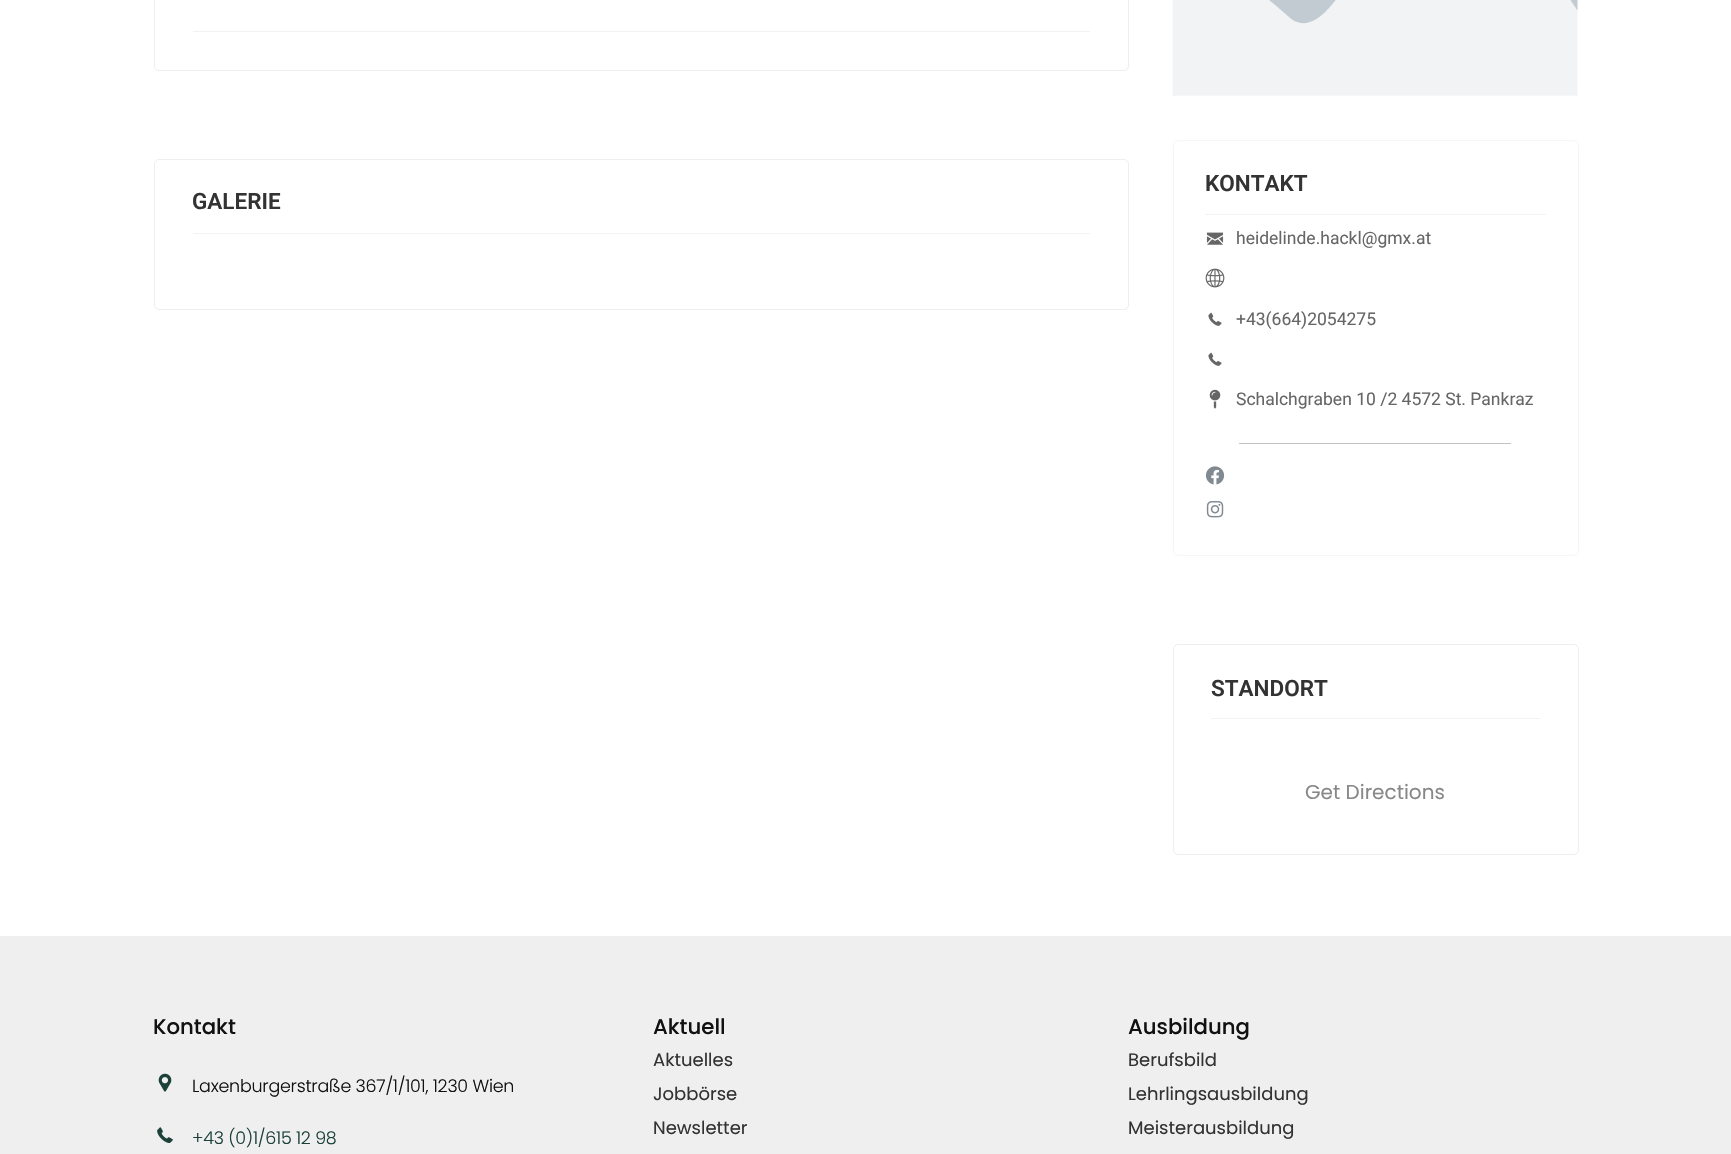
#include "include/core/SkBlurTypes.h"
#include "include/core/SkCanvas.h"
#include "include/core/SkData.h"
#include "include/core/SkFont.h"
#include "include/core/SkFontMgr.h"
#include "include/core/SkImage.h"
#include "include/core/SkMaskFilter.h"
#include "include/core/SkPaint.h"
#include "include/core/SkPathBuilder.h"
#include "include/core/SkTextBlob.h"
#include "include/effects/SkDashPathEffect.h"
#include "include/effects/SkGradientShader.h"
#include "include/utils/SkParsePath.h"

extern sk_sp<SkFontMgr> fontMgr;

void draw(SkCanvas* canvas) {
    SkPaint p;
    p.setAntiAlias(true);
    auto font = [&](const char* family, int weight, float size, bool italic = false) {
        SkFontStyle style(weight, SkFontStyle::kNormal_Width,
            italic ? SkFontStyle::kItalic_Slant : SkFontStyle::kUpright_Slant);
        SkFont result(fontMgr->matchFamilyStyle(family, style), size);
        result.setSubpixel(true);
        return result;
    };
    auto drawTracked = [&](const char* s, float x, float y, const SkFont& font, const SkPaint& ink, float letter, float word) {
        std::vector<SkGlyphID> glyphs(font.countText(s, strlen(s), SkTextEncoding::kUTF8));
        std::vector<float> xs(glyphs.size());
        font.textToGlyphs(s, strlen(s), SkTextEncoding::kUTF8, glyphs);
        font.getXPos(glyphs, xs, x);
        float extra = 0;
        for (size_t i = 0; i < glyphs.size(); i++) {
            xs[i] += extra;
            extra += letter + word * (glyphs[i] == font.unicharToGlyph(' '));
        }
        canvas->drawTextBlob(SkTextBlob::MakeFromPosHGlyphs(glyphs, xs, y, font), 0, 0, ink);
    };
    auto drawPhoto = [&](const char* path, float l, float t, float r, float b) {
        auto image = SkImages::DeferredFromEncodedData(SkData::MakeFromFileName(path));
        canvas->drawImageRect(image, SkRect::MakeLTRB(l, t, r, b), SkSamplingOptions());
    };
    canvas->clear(0xFFFFFFFF);
    p.setStyle(SkPaint::kStroke_Style);
    p.setStrokeWidth(1);
    p.setColor(0xFFEEEEEE);
    canvas->drawRoundRect(SkRect::MakeLTRB(154.5f, -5.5f, 1128.5f, 70.5f), 4.5f, 4.5f, p);
    p.setStyle(SkPaint::kFill_Style);
    p.setColor(0xFFF2F2F2);
    canvas->drawRect(SkRect::MakeLTRB(193, 31, 1090, 32), p);
    p.setStyle(SkPaint::kStroke_Style);
    p.setColor(0xFFEEEEEE);
    canvas->drawRoundRect(SkRect::MakeLTRB(154.5f, 159.5f, 1128.5f, 309.5f), 4.5f, 4.5f, p);
    p.setStyle(SkPaint::kFill_Style);
    p.setColor(0xFFF2F2F2);
    canvas->drawRect(SkRect::MakeLTRB(193, 233, 1090, 234), p);
    auto font1 = font("Roboto", 600, 22.5f);
    p.setColor(0xFF333333);
    canvas->drawString("GALERIE", 192, 209, font1, p);
    drawPhoto("media/1.png", 1172, 0, 1578, 96);
    p.setStyle(SkPaint::kStroke_Style);
    p.setColor(0xFFF6F6F6);
    canvas->drawRoundRect(SkRect::MakeLTRB(1173.5f, 140.5f, 1578.5f, 555.5f), 4.5f, 4.5f, p);
    p.setStyle(SkPaint::kFill_Style);
    p.setColor(0xFFF2F2F2);
    canvas->drawRect(SkRect::MakeLTRB(1205, 214, 1546, 215), p);
    p.setColor(0xFF333333);
    canvas->drawString("KONTAKT", 1205, 191, font1, p);
    drawPhoto("media/2.png", 1206, 232, 1224, 245);
    auto font2 = font("Roboto", 400, 17.5f);
    p.setColor(0xFF666666);
    canvas->drawString("heidelinde.hackl@gmx.at", 1236, 244, font2, p);
    drawPhoto("media/3.png", 1205, 268, 1225, 288);
    drawPhoto("media/4.png", 1208, 312, 1222, 326);
    canvas->drawString("+43(664)2054275", 1236, 325, font2, p);
    drawPhoto("media/4.png", 1208, 352, 1222, 366);
    drawPhoto("media/5.png", 1209, 389, 1221, 409);
    canvas->drawString("Schalchgraben 10 /2 4572 St. Pankraz", 1236, 405, font2, p);
    p.setColor(0xFFC2C2C2);
    canvas->drawRect(SkRect::MakeLTRB(1239, 443, 1511, 444), p);
    drawPhoto("media/6.png", 1205, 466, 1225, 485);
    drawPhoto("media/7.png", 1206, 501, 1224, 518);
    p.setStyle(SkPaint::kStroke_Style);
    p.setColor(0xFFEEEEEE);
    canvas->drawRoundRect(SkRect::MakeLTRB(1173.5f, 644.5f, 1578.5f, 854.5f), 4.5f, 4.5f, p);
    p.setStyle(SkPaint::kFill_Style);
    p.setColor(0xFFF2F2F2);
    canvas->drawRect(SkRect::MakeLTRB(1211, 718, 1540, 719), p);
    p.setColor(0xFF333333);
    canvas->drawString("STANDORT", 1211, 696, font1, p);
    auto font3 = font("Poppins", 400, 20);
    p.setColor(0xFF888888);
    canvas->drawString("Get Directions", 1305, 799, font3, p);
    p.setColor(0xFFEFEFEF);
    canvas->drawRect(SkRect::MakeLTRB(0, 936, 1731, 1154), p);
    auto font4 = font("Poppins", 500, 21.25f);
    p.setColor(0xFF111111);
    canvas->drawString("Kontakt", 153, 1034, font4, p);
    drawPhoto("media/8.png", 158, 1073, 172, 1092);
    auto font5 = font("Poppins", 300, 17.5f);
    drawTracked("Laxenburgerstraße 367/1/101, 1230 Wien", 192, 1092, font5, p, -0.25f, 0);
    drawPhoto("media/9.png", 157, 1127, 173, 1143);
    p.setColor(0xFF1B4139);
    drawTracked("+43 (0)1/615 12 98", 192, 1144, font5, p, -0.25f, 0);
    p.setColor(0xFF111111);
    canvas->drawString("Aktuell", 653, 1034, font4, p);
    auto font6 = font("Poppins", 400, 18);
    p.setColor(0xFF333333);
    {
        const struct { const char* s; float x, y; } items[] = {
            {"Aktuelles", 653, 1066},
            {"Jobbörse", 653, 1100},
            {"Newsletter", 653, 1134},
        };
        for (auto [s, x, y] : items) {
            canvas->drawString(s, x, y, font6, p);
        }
    }
    p.setColor(0xFF111111);
    canvas->drawString("Ausbildung", 1128, 1034, font4, p);
    p.setColor(0xFF333333);
    {
        const struct { const char* s; float x, y; } items[] = {
            {"Berufsbild", 1128, 1066},
            {"Lehrlingsausbildung", 1128, 1100},
            {"Meisterausbildung", 1128, 1134},
        };
        for (auto [s, x, y] : items) {
            canvas->drawString(s, x, y, font6, p);
        }
    }
}
